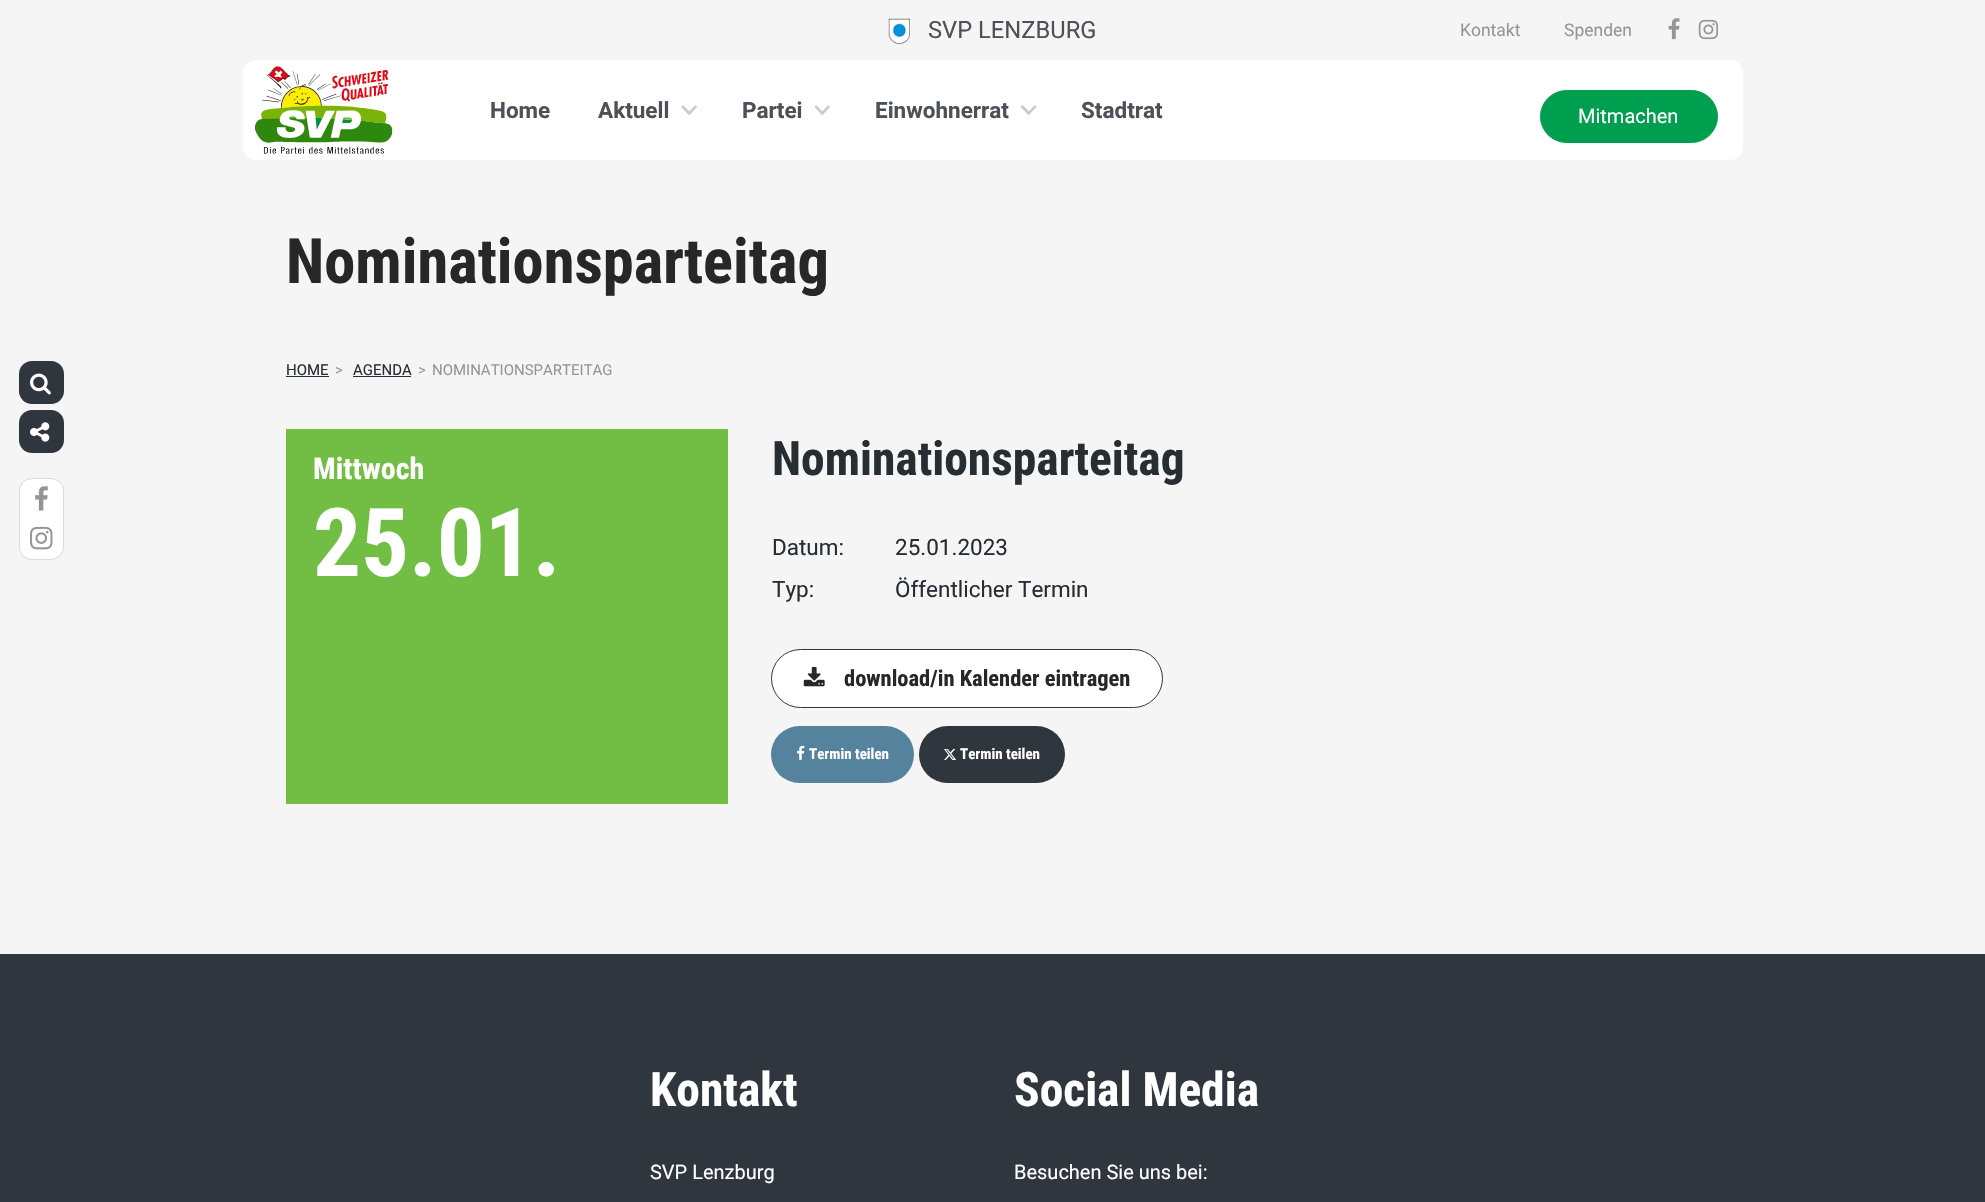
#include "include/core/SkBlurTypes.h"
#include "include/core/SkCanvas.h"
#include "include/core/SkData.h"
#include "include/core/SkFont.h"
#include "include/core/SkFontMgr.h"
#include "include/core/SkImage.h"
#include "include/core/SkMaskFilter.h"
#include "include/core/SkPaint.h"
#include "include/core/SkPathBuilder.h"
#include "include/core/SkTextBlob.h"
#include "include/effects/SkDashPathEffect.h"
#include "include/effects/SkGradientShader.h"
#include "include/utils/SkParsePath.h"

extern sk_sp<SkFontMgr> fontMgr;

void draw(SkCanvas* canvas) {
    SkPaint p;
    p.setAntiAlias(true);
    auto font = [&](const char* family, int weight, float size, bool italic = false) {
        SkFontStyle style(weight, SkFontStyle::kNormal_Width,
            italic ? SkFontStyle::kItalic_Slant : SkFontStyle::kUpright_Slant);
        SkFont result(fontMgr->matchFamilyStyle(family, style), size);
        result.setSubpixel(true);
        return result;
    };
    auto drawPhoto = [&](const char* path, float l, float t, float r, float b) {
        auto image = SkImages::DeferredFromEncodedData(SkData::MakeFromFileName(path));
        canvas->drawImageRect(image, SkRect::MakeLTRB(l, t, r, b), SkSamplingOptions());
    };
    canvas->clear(0xFFF5F5F5);
    drawPhoto("media/1.png", 888, 18, 910, 44);
    auto font1 = font("Roboto", 400, 23.75f);
    p.setColor(0xFF4B5157);
    canvas->drawString("SVP LENZBURG", 928, 38, font1, p);
    auto font2 = font("Roboto", 400, 17.5f);
    p.setColor(0xFF939699);
    canvas->drawString("Kontakt", 1460, 36, font2, p);
    canvas->drawString("Spenden", 1564, 36, font2, p);
    drawPhoto("media/2.png", 1668, 18, 1680, 40);
    drawPhoto("media/3.png", 1698, 19, 1718, 40);
    p.setColor(0xFFFFFFFF);
    canvas->drawRoundRect(SkRect::MakeLTRB(243, 60, 1743, 160), 13, 13, p);
    drawPhoto("media/4.png", 255, 66, 393, 154);
    auto font3 = font("Roboto", 700, 22.5f);
    p.setColor(0xFF4B5157);
    {
        const struct { const char* s; float x, y; } items[] = {
            {"Home", 490, 118},
            {"Aktuell", 598, 118},
            {"Partei", 742, 118},
            {"Einwohnerrat", 875, 118},
            {"Stadtrat", 1081, 118},
        };
        for (auto [s, x, y] : items) {
            canvas->drawString(s, x, y, font3, p);
        }
    }
    p.setColor(0xFFC9CBC4);
    canvas->drawPath(SkPathBuilder().moveTo(683, 105).lineTo(691, 113).lineTo(689, 115).lineTo(681, 107).close().detach(), p);
    canvas->drawPath(SkPathBuilder().moveTo(687.5f, 113).lineTo(695.5f, 105).lineTo(697, 107).lineTo(689.5f, 115).close().detach(), p);
    canvas->drawPath(SkPathBuilder().moveTo(816, 105).lineTo(824, 113).lineTo(822, 115).lineTo(814.5f, 107).close().detach(), p);
    canvas->drawPath(SkPathBuilder().moveTo(820.5f, 113).lineTo(828.5f, 105).lineTo(830, 107).lineTo(822.5f, 115).close().detach(), p);
    canvas->drawPath(SkPathBuilder().moveTo(1022.5f, 105).lineTo(1030.5f, 113).lineTo(1028.5f, 115).lineTo(1020.5f, 107).close().detach(), p);
    canvas->drawPath(SkPathBuilder().moveTo(1027, 113).lineTo(1035, 105).lineTo(1036.5f, 107).lineTo(1028.5f, 115).close().detach(), p);
    p.setColor(0xFF009F4F);
    canvas->drawRoundRect(SkRect::MakeLTRB(1540.5f, 90.5f, 1717.5f, 142.5f), 26, 26, p);
    p.setStyle(SkPaint::kStroke_Style);
    p.setStrokeWidth(1);
    canvas->drawRoundRect(SkRect::MakeLTRB(1540.5f, 90.5f, 1717.5f, 142.5f), 26, 26, p);
    auto font4 = font("Roboto", 400, 20);
    p.setStyle(SkPaint::kFill_Style);
    p.setColor(0xFFFFFFFF);
    canvas->drawString("Mitmachen", 1578, 123, font4, p);
    p.setColor(0xFF30363D);
    canvas->drawRoundRect(SkRect::MakeLTRB(19, 361, 64, 404), 13, 13, p);
    drawPhoto("media/5.png", 30, 373, 51, 395);
    canvas->drawRoundRect(SkRect::MakeLTRB(19, 410, 64, 453), 13, 13, p);
    drawPhoto("media/6.png", 30, 422, 50, 442);
    p.setColor(0xFFFFFFFF);
    canvas->drawRoundRect(SkRect::MakeLTRB(19.5f, 478.5f, 63.5f, 559.5f), 12.5f, 12.5f, p);
    p.setStyle(SkPaint::kStroke_Style);
    p.setColor(0xFFD9DADB);
    canvas->drawRoundRect(SkRect::MakeLTRB(19.5f, 478.5f, 63.5f, 559.5f), 12.5f, 12.5f, p);
    drawPhoto("media/7.png", 35, 486, 48, 511);
    drawPhoto("media/8.png", 30, 526, 53, 550);
    auto font5 = font("Roboto Condensed", 700, 62.5f);
    p.setStyle(SkPaint::kFill_Style);
    p.setColor(0xFF272727);
    canvas->drawString("Nominationsparteitag", 286, 283, font5, p);
    auto font6 = font("Roboto", 400, 15);
    p.setColor(0xFF262D33);
    canvas->drawString("HOME", 286, 375, font6, p);
    canvas->drawRect(SkRect::MakeLTRB(286, 376, 329, 377), p);
    p.setColor(0xFF939699);
    canvas->drawString(">", 335, 375, font6, p);
    p.setColor(0xFF262D33);
    canvas->drawString("AGENDA", 353, 375, font6, p);
    canvas->drawRect(SkRect::MakeLTRB(353, 376, 411, 377), p);
    p.setColor(0xFF939699);
    canvas->drawString(">", 418, 375, font6, p);
    canvas->drawString("NOMINATIONSPARTEITAG", 432, 375, font6, p);
    p.setColor(0xFF72BE44);
    canvas->drawRect(SkRect::MakeLTRB(286, 429, 728, 804), p);
    auto font7 = font("Roboto Condensed", 700, 30);
    p.setColor(0xFFFFFFFF);
    canvas->drawString("Mittwoch", 313, 479, font7, p);
    auto font8 = font("Roboto Condensed", 700, 95);
    canvas->drawString("25.01.", 313, 576, font8, p);
    auto font9 = font("Roboto Condensed", 700, 47.5f);
    p.setColor(0xFF262D33);
    canvas->drawString("Nominationsparteitag", 772, 475, font9, p);
    auto font10 = font("Roboto", 400, 22.5f);
    {
        const struct { const char* s; float x, y; } items[] = {
            {"Datum:", 772, 555},
            {"25.01.2023", 895, 555},
            {"Typ:", 772, 597},
            {"Öffentlicher Termin", 895, 597},
        };
        for (auto [s, x, y] : items) {
            canvas->drawString(s, x, y, font10, p);
        }
    }
    p.setColor(0xFFFFFFFF);
    canvas->drawRoundRect(SkRect::MakeLTRB(771.5f, 649.5f, 1162.5f, 707.5f), 29, 29, p);
    p.setStyle(SkPaint::kStroke_Style);
    p.setColor(0xFF30363D);
    canvas->drawRoundRect(SkRect::MakeLTRB(771.5f, 649.5f, 1162.5f, 707.5f), 29, 29, p);
    drawPhoto("media/9.png", 803, 666, 825, 687);
    auto font11 = font("Roboto Condensed", 700, 22.5f);
    p.setStyle(SkPaint::kFill_Style);
    p.setColor(0xFF272727);
    canvas->drawString("download/in Kalender eintragen", 844, 686, font11, p);
    p.setColor(0xFF55839E);
    canvas->drawRoundRect(SkRect::MakeLTRB(771, 726, 914, 783), 28.5f, 28.5f, p);
    drawPhoto("media/10.png", 797, 745, 805, 760);
    auto font12 = font("Roboto Condensed", 700, 15);
    p.setColor(0xFFFFFFFF);
    canvas->drawString("Termin teilen", 809, 759, font12, p);
    p.setColor(0xFF30363D);
    canvas->drawRoundRect(SkRect::MakeLTRB(919, 726, 1065, 783), 28.5f, 28.5f, p);
    drawPhoto("media/11.png", 944, 749, 956, 760);
    p.setColor(0xFFFFFFFF);
    canvas->drawString("Termin teilen", 960, 759, font12, p);
    p.setColor(0xFF30363D);
    canvas->drawRect(SkRect::MakeLTRB(0, 954, 1985, 1202), p);
    p.setColor(0xFFFFFFFF);
    canvas->drawString("Kontakt", 650, 1106, font9, p);
    canvas->drawString("SVP Lenzburg", 650, 1179, font4, p);
    canvas->drawString("Social Media", 1014, 1106, font9, p);
    canvas->drawString("Besuchen Sie uns bei:", 1014, 1179, font4, p);
}
